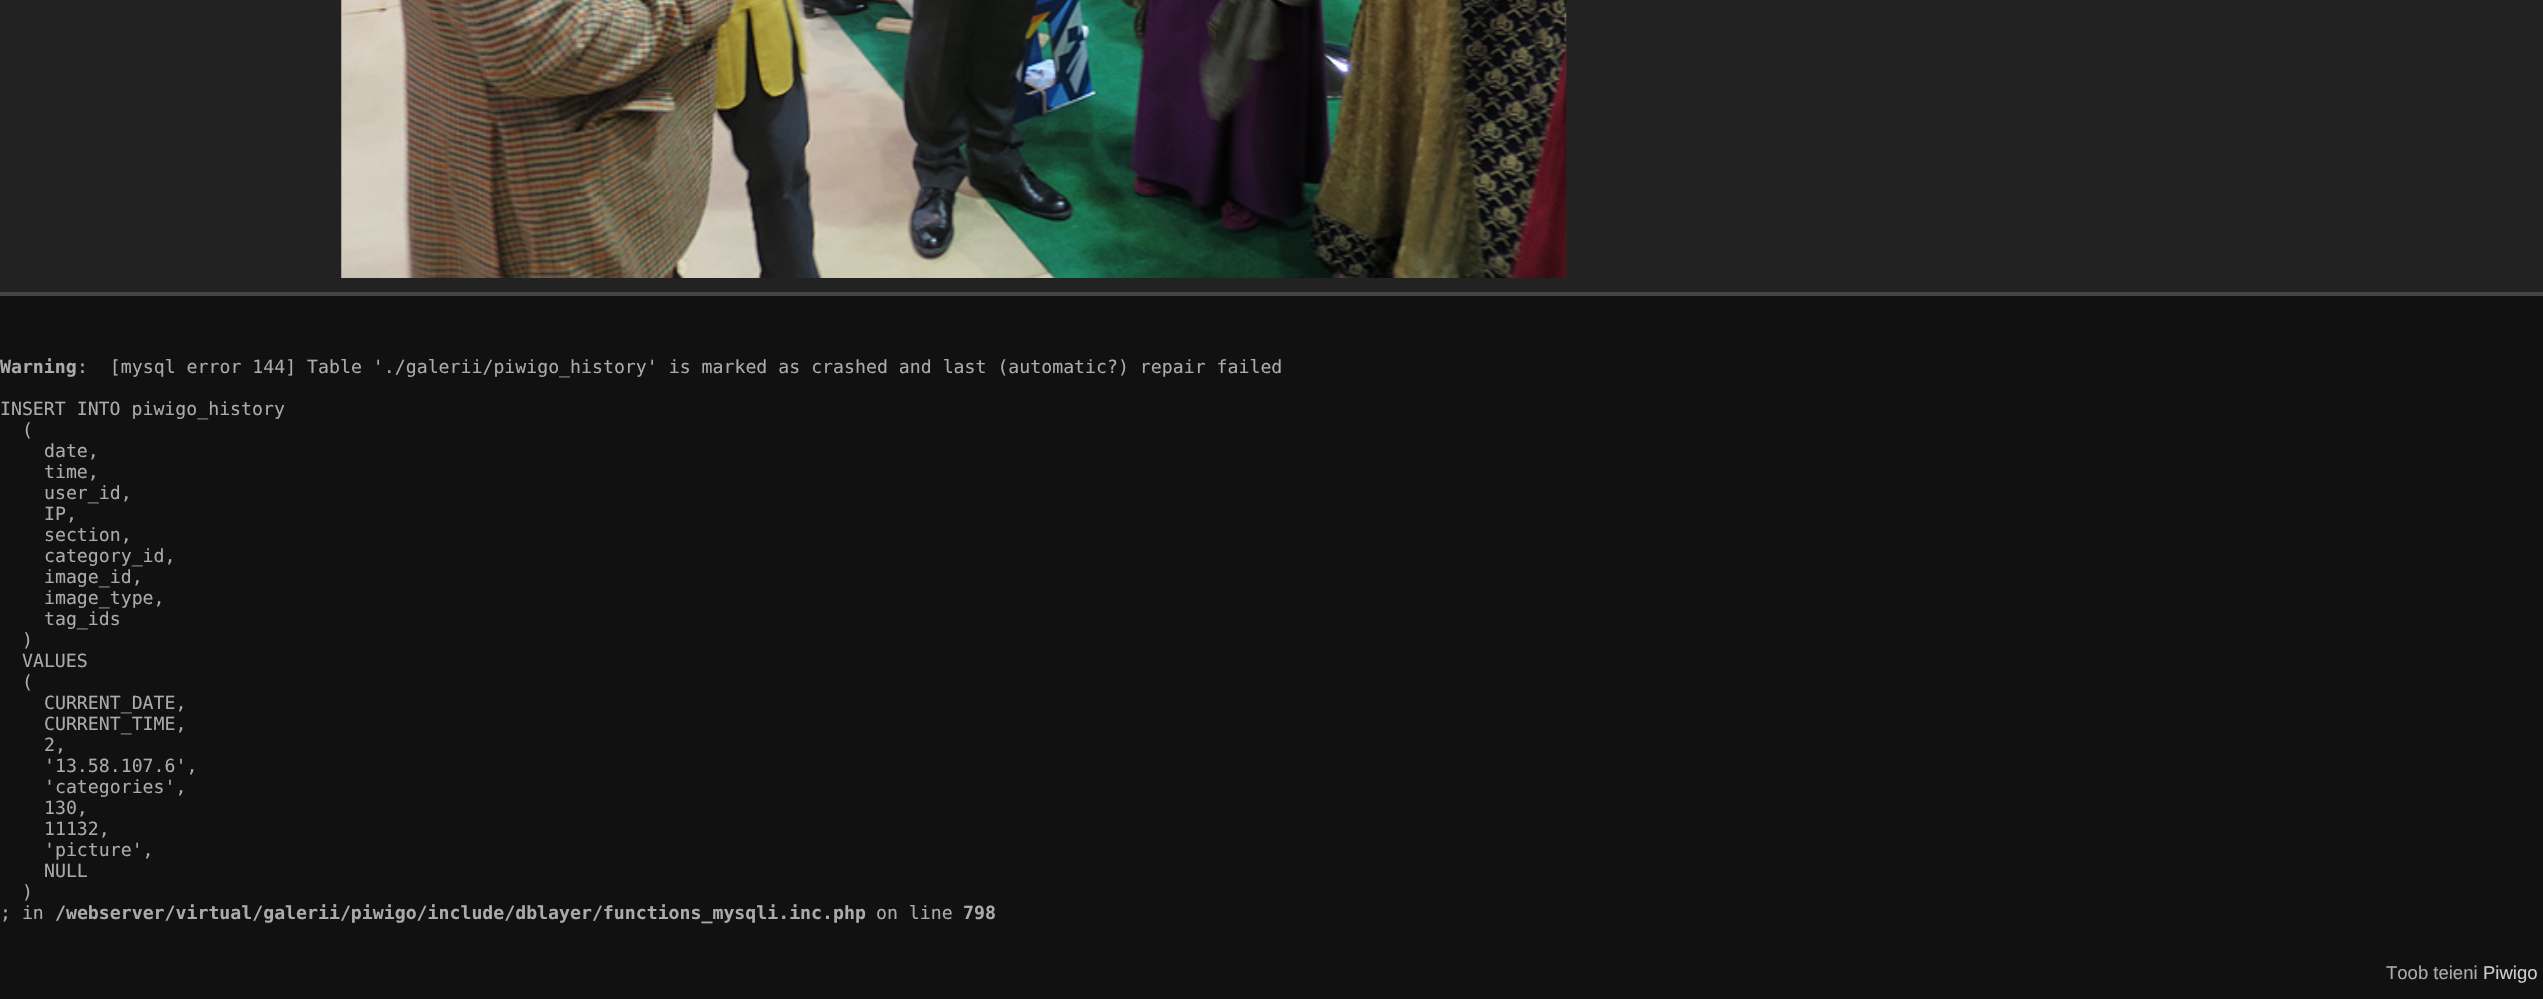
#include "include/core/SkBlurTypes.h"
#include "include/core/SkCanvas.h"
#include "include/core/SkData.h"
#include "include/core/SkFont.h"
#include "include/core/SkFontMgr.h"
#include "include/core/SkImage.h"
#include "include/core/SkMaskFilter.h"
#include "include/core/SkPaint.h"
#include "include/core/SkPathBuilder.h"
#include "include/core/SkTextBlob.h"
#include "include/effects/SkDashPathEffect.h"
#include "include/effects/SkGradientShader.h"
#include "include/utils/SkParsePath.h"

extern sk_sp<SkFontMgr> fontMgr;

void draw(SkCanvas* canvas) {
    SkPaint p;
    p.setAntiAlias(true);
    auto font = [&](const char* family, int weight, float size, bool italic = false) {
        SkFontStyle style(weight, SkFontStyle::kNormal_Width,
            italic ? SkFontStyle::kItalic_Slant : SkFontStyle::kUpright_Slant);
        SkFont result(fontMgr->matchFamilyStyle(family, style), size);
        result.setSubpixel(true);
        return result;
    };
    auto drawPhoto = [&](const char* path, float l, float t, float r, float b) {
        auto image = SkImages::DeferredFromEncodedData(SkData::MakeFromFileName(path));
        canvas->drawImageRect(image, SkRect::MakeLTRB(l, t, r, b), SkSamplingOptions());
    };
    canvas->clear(0xFF111111);
    p.setColor(0xFF222222);
    canvas->drawRect(SkRect::MakeLTRB(0, 0, 2543, 292), p);
    p.setColor(0xFF444444);
    canvas->drawRect(SkRect::MakeLTRB(0, 292, 2543, 296), p);
    drawPhoto("media/1.png", 341, 0, 1567, 278);
    auto font1 = font("DejaVu Sans Mono", 700, 18.2f);
    p.setColor(0xFFAAAAAA);
    canvas->drawString("Warning", 0, 373, font1, p);
    auto font2 = font("DejaVu Sans Mono", 400, 18.2f);
    {
        const struct { const char* s; float x, y; } items[] = {
            {":  [mysql error 144] Table './galerii/piwigo_history' is marked as crashed and last (automatic?) repair failed", 77, 373},
            {"INSERT INTO piwigo_history", 0, 415},
            {"(", 22, 436},
            {"date,", 44, 457},
            {"time,", 44, 478},
            {"user_id,", 44, 499},
            {"IP,", 44, 520},
            {"section,", 44, 541},
            {"category_id,", 44, 562},
            {"image_id,", 44, 583},
            {"image_type,", 44, 604},
            {"tag_ids", 44, 625},
            {")", 22, 646},
            {"VALUES", 22, 667},
            {"(", 22, 688},
            {"CURRENT_DATE,", 44, 709},
            {"CURRENT_TIME,", 44, 730},
            {"2,", 44, 751},
            {"'13.58.107.6',", 44, 772},
            {"'categories',", 44, 793},
            {"130,", 44, 814},
            {"11132,", 44, 835},
            {"'picture',", 44, 856},
            {"NULL", 44, 877},
            {")", 22, 898},
            {"; in", 0, 919},
        };
        for (auto [s, x, y] : items) {
            canvas->drawString(s, x, y, font2, p);
        }
    }
    canvas->drawString("/webserver/virtual/galerii/piwigo/include/dblayer/functions_mysqli.inc.php", 55, 919, font1, p);
    canvas->drawString("on line", 876, 919, font2, p);
    canvas->drawString("798", 963, 919, font1, p);
    auto font3 = font("Liberation Sans", 400, 18.5f);
    canvas->drawString("Toob teieni", 2386, 979, font3, p);
    p.setColor(0xFFCCCCCC);
    canvas->drawString("Piwigo", 2483, 979, font3, p);
}
